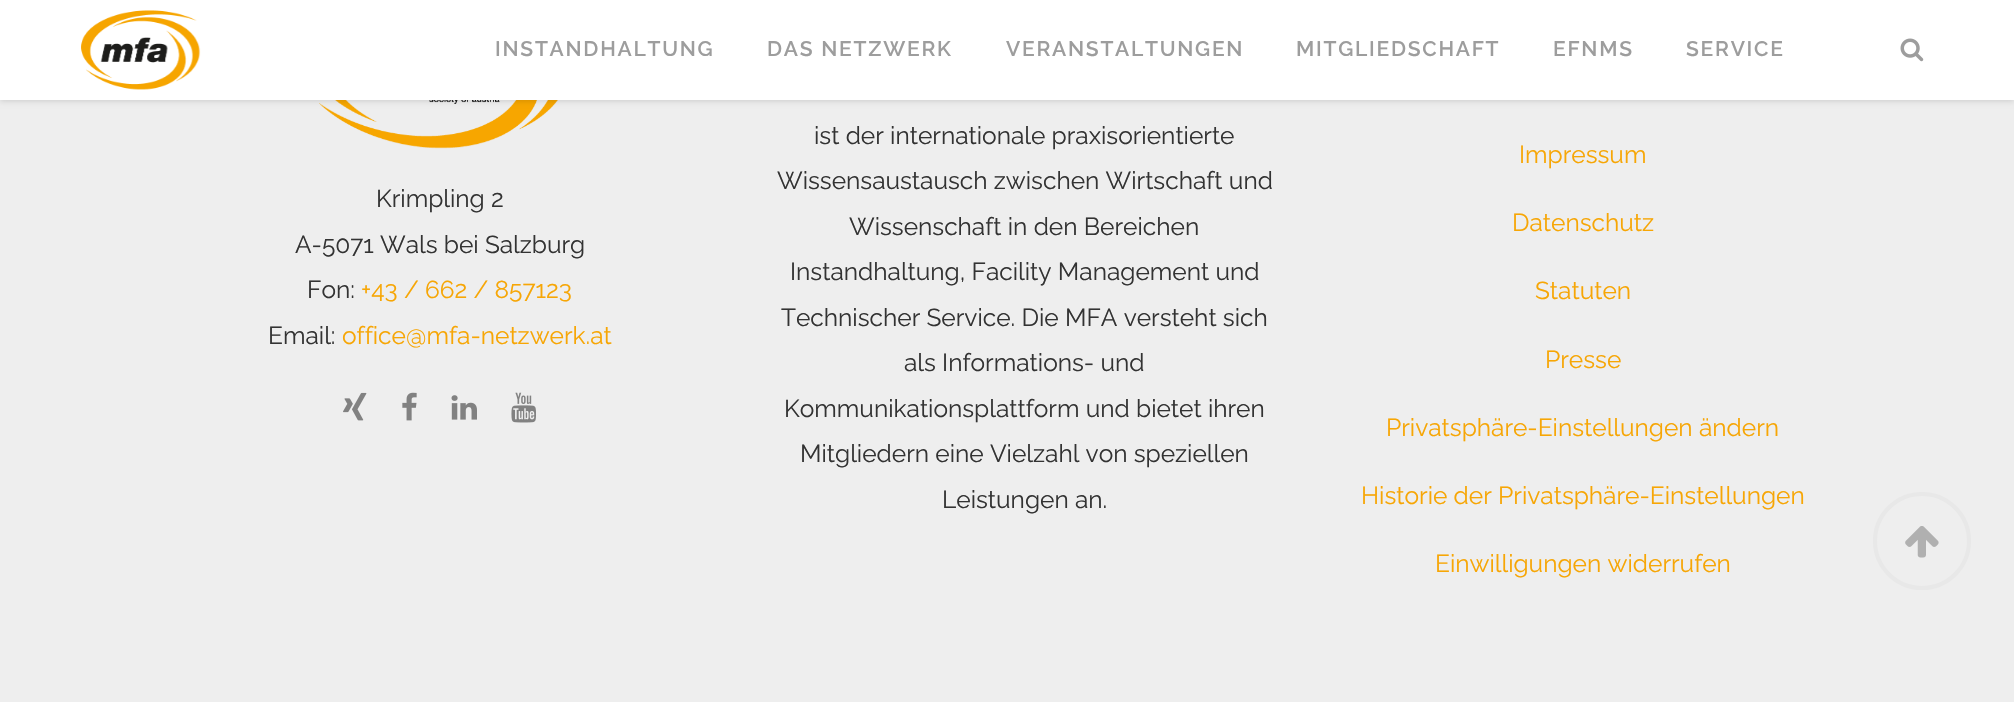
#include "include/core/SkBlurTypes.h"
#include "include/core/SkCanvas.h"
#include "include/core/SkData.h"
#include "include/core/SkFont.h"
#include "include/core/SkFontMgr.h"
#include "include/core/SkImage.h"
#include "include/core/SkMaskFilter.h"
#include "include/core/SkPaint.h"
#include "include/core/SkPathBuilder.h"
#include "include/core/SkTextBlob.h"
#include "include/effects/SkDashPathEffect.h"
#include "include/effects/SkGradientShader.h"
#include "include/utils/SkParsePath.h"

extern sk_sp<SkFontMgr> fontMgr;

void draw(SkCanvas* canvas) {
    SkPaint p;
    p.setAntiAlias(true);
    auto font = [&](const char* family, int weight, float size, bool italic = false) {
        SkFontStyle style(weight, SkFontStyle::kNormal_Width,
            italic ? SkFontStyle::kItalic_Slant : SkFontStyle::kUpright_Slant);
        SkFont result(fontMgr->matchFamilyStyle(family, style), size);
        result.setSubpixel(true);
        return result;
    };
    auto drawTracked = [&](const char* s, float x, float y, const SkFont& font, const SkPaint& ink, float letter, float word) {
        std::vector<SkGlyphID> glyphs(font.countText(s, strlen(s), SkTextEncoding::kUTF8));
        std::vector<float> xs(glyphs.size());
        font.textToGlyphs(s, strlen(s), SkTextEncoding::kUTF8, glyphs);
        font.getXPos(glyphs, xs, x);
        float extra = 0;
        for (size_t i = 0; i < glyphs.size(); i++) {
            xs[i] += extra;
            extra += letter + word * (glyphs[i] == font.unicharToGlyph(' '));
        }
        canvas->drawTextBlob(SkTextBlob::MakeFromPosHGlyphs(glyphs, xs, y, font), 0, 0, ink);
    };
    auto drawPhoto = [&](const char* path, float l, float t, float r, float b) {
        auto image = SkImages::DeferredFromEncodedData(SkData::MakeFromFileName(path));
        canvas->drawImageRect(image, SkRect::MakeLTRB(l, t, r, b), SkSamplingOptions());
    };
    canvas->clear(0xFFEEEEEE);
    drawPhoto("media/3.png", 319, 100, 558, 149);
    p.setColor(0x1C000000);
    p.setMaskFilter(SkMaskFilter::MakeBlur(kNormal_SkBlurStyle, 2.5f));
    canvas->drawRect(SkRect::MakeLTRB(0, 2, 2014, 102), p);
    p.setMaskFilter(nullptr);
    p.setColor(0xFFFFFFFF);
    canvas->drawRect(SkRect::MakeLTRB(0, 0, 2014, 100), p);
    drawPhoto("media/1.png", 81, 10, 201, 90);
    auto font1 = font("Raleway", 600, 21);
    p.setColor(0xFF9D9D9D);
    {
        const struct { const char* s; float x, y; } items[] = {
            {"INSTANDHALTUNG", 495, 56},
            {"DAS NETZWERK", 767, 56},
            {"VERANSTALTUNGEN", 1006, 56},
            {"MITGLIEDSCHAFT", 1296, 56},
            {"EFNMS", 1553, 56},
            {"SERVICE", 1686, 56},
        };
        for (auto [s, x, y] : items) {
            drawTracked(s, x, y, font1, p, 1.75f, 0);
        }
    }
    drawPhoto("media/2.png", 1900, 38, 1924, 62);
    auto font2 = font("Raleway", 400, 24.5f);
    p.setColor(0xFF333333);
    {
        const struct { const char* s; float x, y; } items[] = {
            {"Krimpling 2", 376, 207},
            {"A-5071 Wals bei Salzburg", 295, 253},
            {"Fon:", 307, 298},
        };
        for (auto [s, x, y] : items) {
            canvas->drawString(s, x, y, font2, p);
        }
    }
    p.setColor(0xFFF7A605);
    canvas->drawString("+43 / 662 / 857123", 361, 298, font2, p);
    p.setColor(0xFF333333);
    canvas->drawString("Email:", 268, 344, font2, p);
    p.setColor(0xFFF7A605);
    canvas->drawString("office@mfa-netzwerk.at", 342, 344, font2, p);
    drawPhoto("media/4.png", 343, 392, 367, 421);
    drawPhoto("media/5.png", 402, 392, 417, 421);
    drawPhoto("media/6.png", 451, 395, 477, 420);
    drawPhoto("media/7.png", 511, 392, 536, 423);
    p.setColor(0xFF333333);
    {
        const struct { const char* s; float x, y; } items[] = {
            {"ist der internationale praxisorientierte", 814, 144},
            {"Wissensaustausch zwischen Wirtschaft und", 777, 189},
            {"Wissenschaft in den Bereichen", 849, 235},
            {"Instandhaltung, Facility Management und", 790, 280},
            {"Technischer Service. Die MFA versteht sich", 781, 326},
            {"als Informations- und", 904, 371},
            {"Kommunikationsplattform und bietet ihren", 784, 417},
            {"Mitgliedern eine Vielzahl von speziellen", 800, 462},
            {"Leistungen an.", 942, 508},
        };
        for (auto [s, x, y] : items) {
            canvas->drawString(s, x, y, font2, p);
        }
    }
    p.setColor(0xFFF7A605);
    {
        const struct { const char* s; float x, y; } items[] = {
            {"Impressum", 1519, 163},
            {"Datenschutz", 1512, 231},
            {"Statuten", 1535, 299},
            {"Presse", 1545, 368},
            {"Privatsphäre-Einstellungen ändern", 1386, 436},
            {"Historie der Privatsphäre-Einstellungen", 1361, 504},
            {"Einwilligungen widerrufen", 1435, 572},
        };
        for (auto [s, x, y] : items) {
            canvas->drawString(s, x, y, font2, p);
        }
    }
    p.setStyle(SkPaint::kStroke_Style);
    p.setStrokeWidth(4);
    p.setColor(0xFFE8E8E8);
    canvas->drawCircle(1922, 541, 47, p);
    drawPhoto("media/8.png", 1905, 526, 1939, 558);
}
